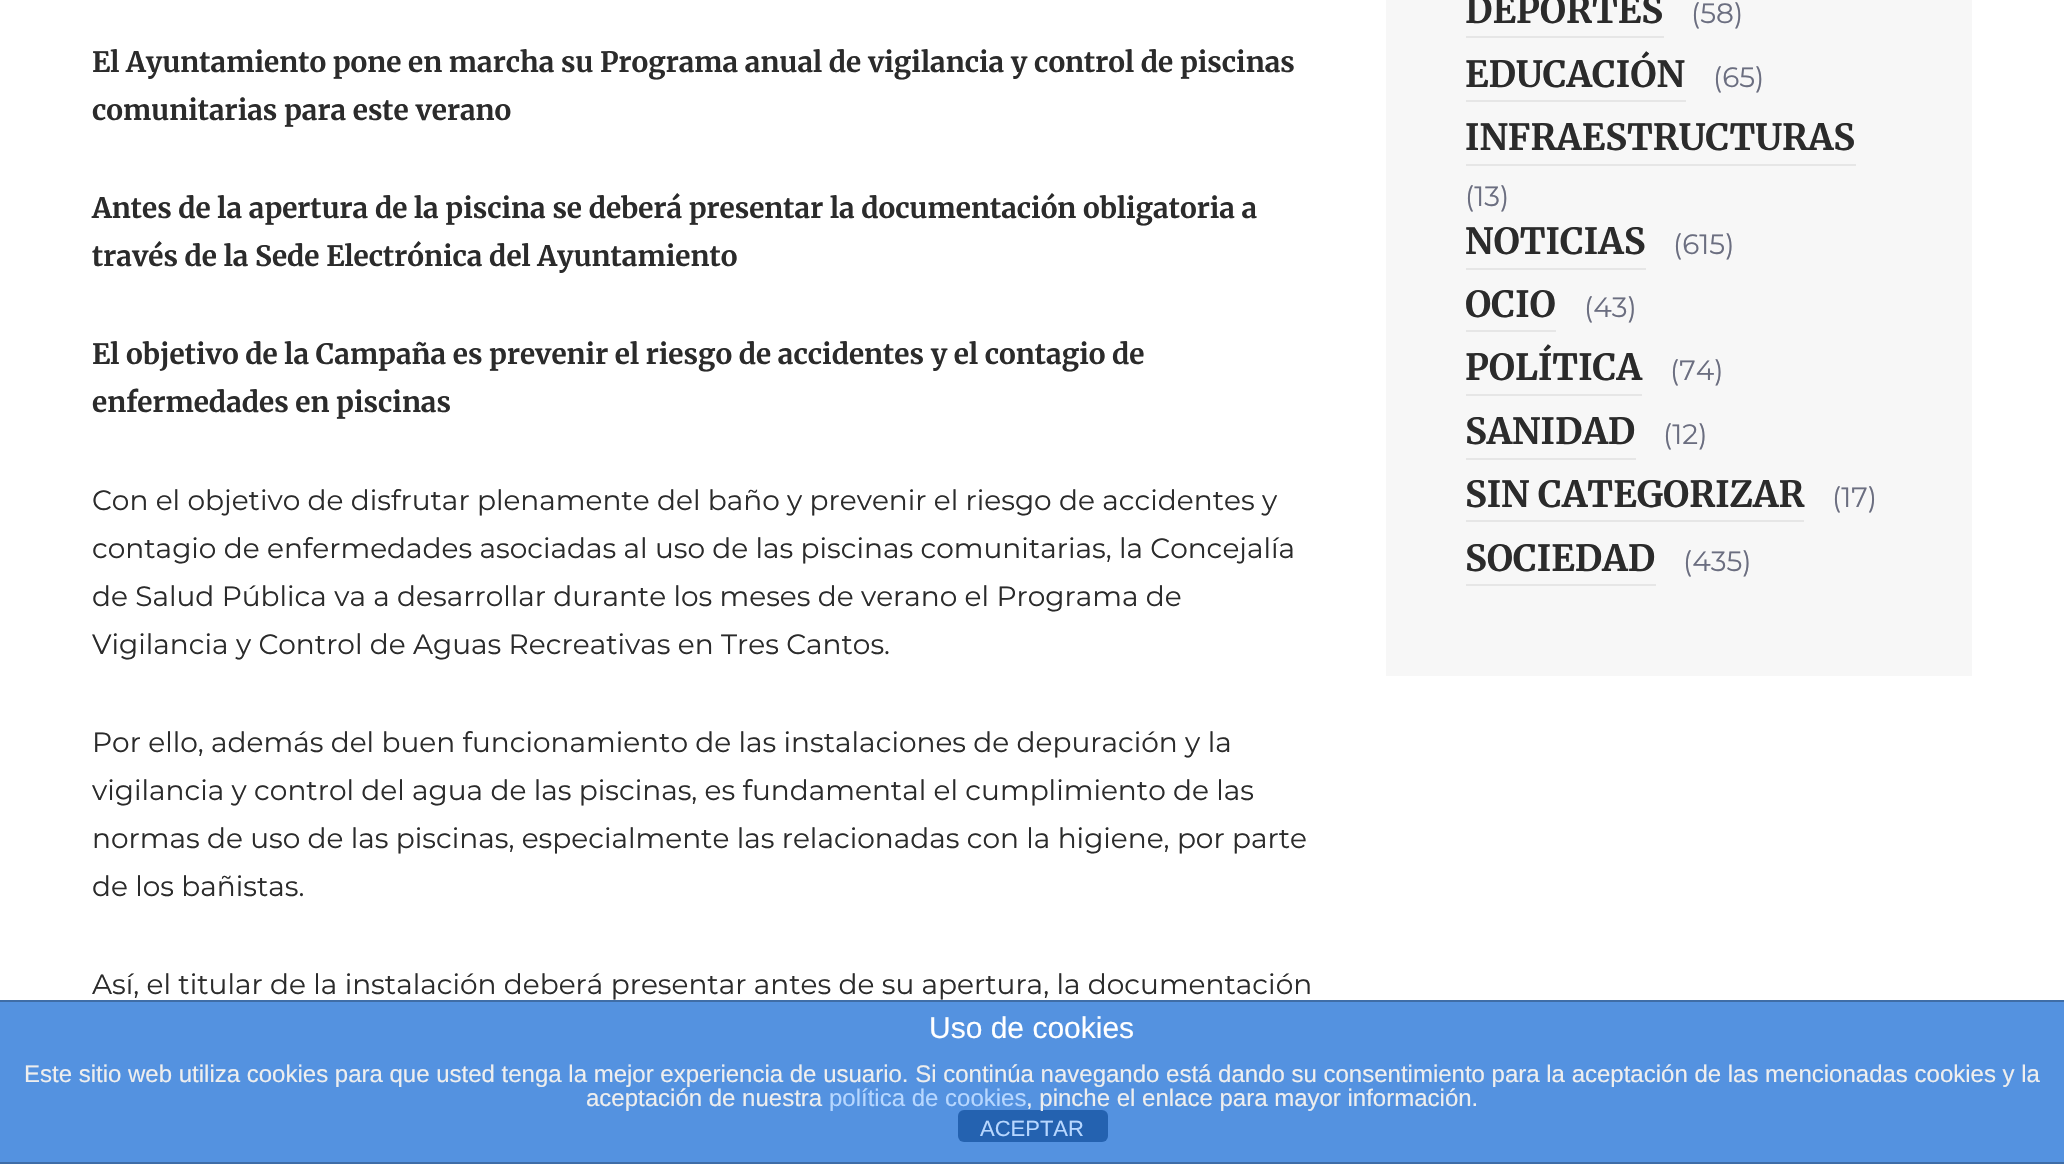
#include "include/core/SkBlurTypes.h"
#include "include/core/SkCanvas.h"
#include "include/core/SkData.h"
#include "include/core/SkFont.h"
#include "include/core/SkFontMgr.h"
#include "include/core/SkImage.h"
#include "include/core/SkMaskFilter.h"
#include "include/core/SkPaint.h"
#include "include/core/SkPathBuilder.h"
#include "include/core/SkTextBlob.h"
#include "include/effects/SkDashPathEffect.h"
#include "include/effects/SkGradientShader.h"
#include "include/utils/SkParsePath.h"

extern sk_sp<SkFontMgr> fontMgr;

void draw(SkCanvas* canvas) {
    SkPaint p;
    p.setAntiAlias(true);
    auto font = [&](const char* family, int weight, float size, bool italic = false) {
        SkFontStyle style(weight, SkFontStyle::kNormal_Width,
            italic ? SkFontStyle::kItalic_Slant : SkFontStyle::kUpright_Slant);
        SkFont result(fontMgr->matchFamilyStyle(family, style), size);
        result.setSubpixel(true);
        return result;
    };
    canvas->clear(0xFFFFFFFF);
    auto font1 = font("Merriweather", 700, 28);
    p.setColor(0xFF2B2B2B);
    {
        const struct { const char* s; float x, y; } items[] = {
            {"El Ayuntamiento pone en marcha su Programa anual de vigilancia y control de piscinas", 92, 72},
            {"comunitarias para este verano", 92, 120},
            {"Antes de la apertura de la piscina se deberá presentar la documentación obligatoria a", 92, 218},
            {"través de la Sede Electrónica del Ayuntamiento", 92, 266},
            {"El objetivo de la Campaña es prevenir el riesgo de accidentes y el contagio de", 92, 364},
            {"enfermedades en piscinas", 92, 412},
        };
        for (auto [s, x, y] : items) {
            canvas->drawString(s, x, y, font1, p);
        }
    }
    auto font2 = font("Montserrat", 400, 28);
    {
        const struct { const char* s; float x, y; } items[] = {
            {"Con el objetivo de disfrutar plenamente del baño y prevenir el riesgo de accidentes y", 92, 510},
            {"contagio de enfermedades asociadas al uso de las piscinas comunitarias, la Concejalía", 92, 558},
            {"de Salud Pública va a desarrollar durante los meses de verano el Programa de", 92, 606},
            {"Vigilancia y Control de Aguas Recreativas en Tres Cantos.", 92, 654},
            {"Por ello, además del buen funcionamiento de las instalaciones de depuración y la", 92, 752},
            {"vigilancia y control del agua de las piscinas, es fundamental el cumplimiento de las", 92, 800},
            {"normas de uso de las piscinas, especialmente las relacionadas con la higiene, por parte", 92, 848},
            {"de los bañistas.", 92, 896},
            {"Así, el titular de la instalación deberá presentar antes de su apertura, la documentación", 92, 994},
        };
        for (auto [s, x, y] : items) {
            canvas->drawString(s, x, y, font2, p);
        }
    }
    p.setColor(0xFFF7F7F7);
    canvas->drawRect(SkRect::MakeLTRB(1386, 0, 1972, 676), p);
    p.setColor(0xFFE6E6E6);
    canvas->drawRect(SkRect::MakeLTRB(1466, 36, 1664, 38), p);
    auto font3 = font("Merriweather", 700, 36);
    p.setColor(0xFF2B2B2B);
    canvas->drawString("DEPORTES", 1465, 23, font3, p);
    p.setColor(0xFF6B6E80);
    canvas->drawString("(58)", 1691, 23, font2, p);
    p.setColor(0xFFE6E6E6);
    canvas->drawRect(SkRect::MakeLTRB(1466, 100, 1686, 102), p);
    p.setColor(0xFF2B2B2B);
    canvas->drawString("EDUCACIÓN", 1465, 87, font3, p);
    p.setColor(0xFF6B6E80);
    canvas->drawString("(65)", 1713, 87, font2, p);
    p.setColor(0xFFE6E6E6);
    canvas->drawRect(SkRect::MakeLTRB(1466, 164, 1856, 166), p);
    p.setColor(0xFF2B2B2B);
    canvas->drawString("INFRAESTRUCTURAS", 1465, 150, font3, p);
    p.setColor(0xFF6B6E80);
    canvas->drawString("(13)", 1465, 206, font2, p);
    p.setColor(0xFFE6E6E6);
    canvas->drawRect(SkRect::MakeLTRB(1466, 268, 1646, 270), p);
    p.setColor(0xFF2B2B2B);
    canvas->drawString("NOTICIAS", 1465, 254, font3, p);
    p.setColor(0xFF6B6E80);
    canvas->drawString("(615)", 1673, 254, font2, p);
    p.setColor(0xFFE6E6E6);
    canvas->drawRect(SkRect::MakeLTRB(1466, 330, 1556, 332), p);
    p.setColor(0xFF2B2B2B);
    canvas->drawString("OCIO", 1465, 317, font3, p);
    p.setColor(0xFF6B6E80);
    canvas->drawString("(43)", 1584, 317, font2, p);
    p.setColor(0xFFE6E6E6);
    canvas->drawRect(SkRect::MakeLTRB(1466, 394, 1642, 396), p);
    p.setColor(0xFF2B2B2B);
    canvas->drawString("POLÍTICA", 1465, 380, font3, p);
    p.setColor(0xFF6B6E80);
    canvas->drawString("(74)", 1670, 380, font2, p);
    p.setColor(0xFFE6E6E6);
    canvas->drawRect(SkRect::MakeLTRB(1466, 458, 1636, 460), p);
    p.setColor(0xFF2B2B2B);
    canvas->drawString("SANIDAD", 1465, 444, font3, p);
    p.setColor(0xFF6B6E80);
    canvas->drawString("(12)", 1663, 444, font2, p);
    p.setColor(0xFFE6E6E6);
    canvas->drawRect(SkRect::MakeLTRB(1466, 520, 1804, 522), p);
    p.setColor(0xFF2B2B2B);
    canvas->drawString("SIN CATEGORIZAR", 1465, 507, font3, p);
    p.setColor(0xFF6B6E80);
    canvas->drawString("(17)", 1832, 507, font2, p);
    p.setColor(0xFFE6E6E6);
    canvas->drawRect(SkRect::MakeLTRB(1466, 584, 1656, 586), p);
    p.setColor(0xFF2B2B2B);
    canvas->drawString("SOCIEDAD", 1465, 571, font3, p);
    p.setColor(0xFF6B6E80);
    canvas->drawString("(435)", 1683, 571, font2, p);
    {
        const struct { float l, t, r, b; SkColor color; } items[] = {
            {0, 1002, 2064, 1162, 0xFF5492E0},
            {0, 1000, 2064, 1002, 0xFF3F6DA7},
            {0, 1162, 2064, 1164, 0xFF3F6DA7},
        };
        for (auto [l, t, r, b, color] : items) {
            p.setColor(color);
            canvas->drawRect(SkRect::MakeLTRB(l, t, r, b), p);
        }
    }
    auto font4 = font("Liberation Sans", 400, 30);
    p.setColor(0xFFFFFFFF);
    canvas->drawString("Uso de cookies", 929, 1038, font4, p);
    auto font5 = font("Liberation Sans", 400, 24);
    p.setColor(0xFFEEEEEE);
    canvas->drawString("Este sitio web utiliza cookies para que usted tenga la mejor experiencia de usuario. Si continúa navegando está dando su consentimiento para la aceptación de las mencionadas cookies y la", 24, 1082, font5, p);
    canvas->drawString("aceptación de nuestra", 586, 1106, font5, p);
    p.setColor(0xFF2462B0);
    canvas->drawRoundRect(SkRect::MakeLTRB(958, 1110, 1108, 1142), 6, 6, p);
    p.setColor(0xFFB7D7FF);
    canvas->drawString("política de cookies", 829, 1106, font5, p);
    p.setColor(0xFFEEEEEE);
    canvas->drawString(", pinche el enlace para mayor información.", 1026, 1106, font5, p);
    auto font6 = font("Liberation Sans", 400, 22);
    p.setColor(0xFFB7D7FF);
    canvas->drawString("ACEPTAR", 980, 1136, font6, p);
}
